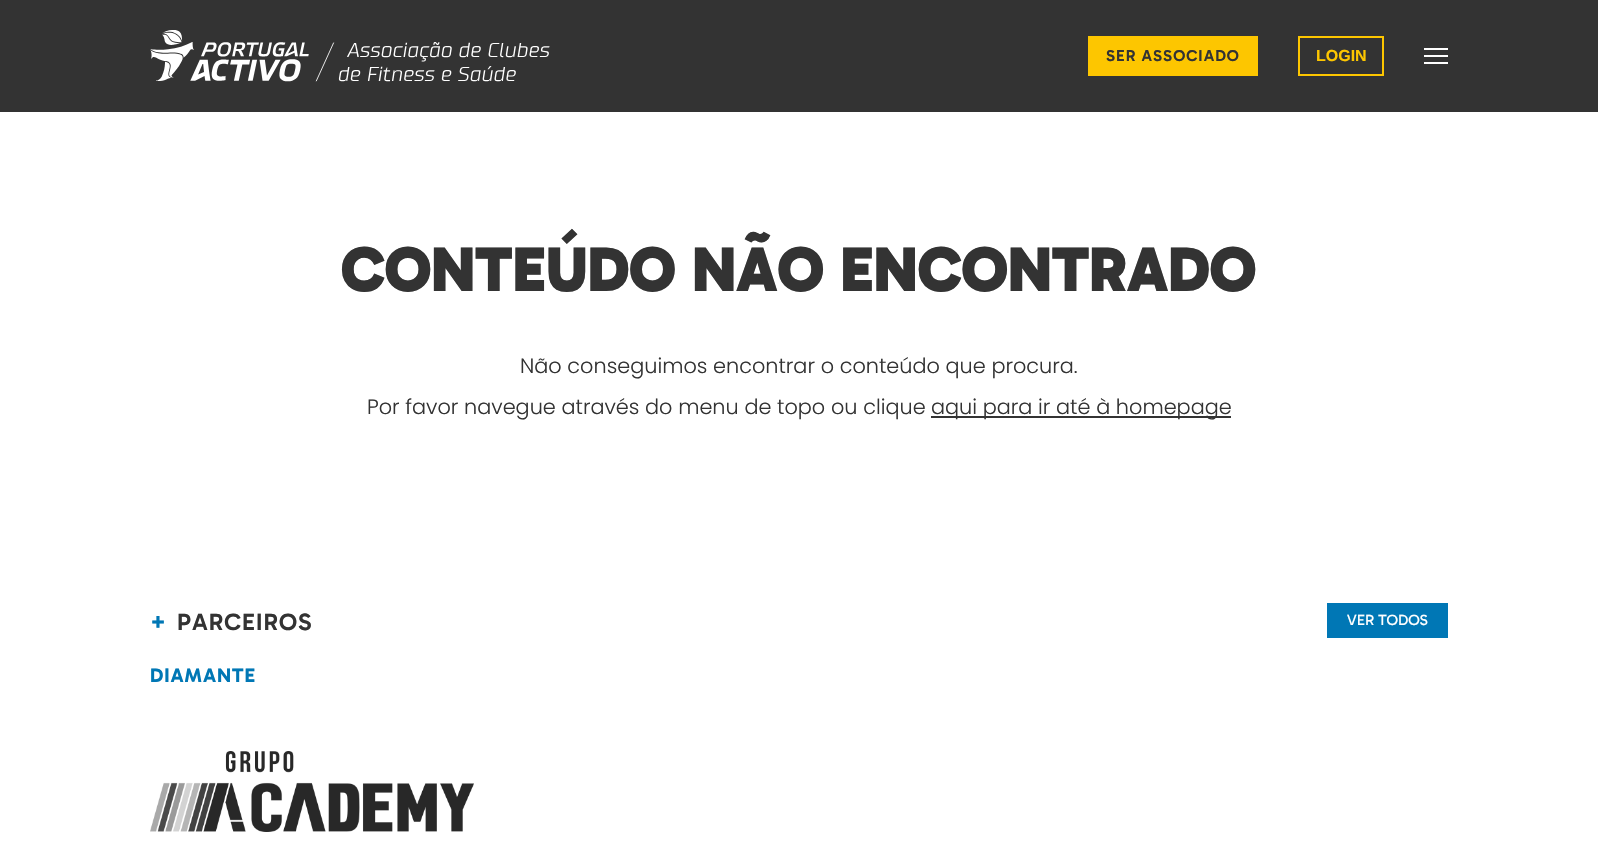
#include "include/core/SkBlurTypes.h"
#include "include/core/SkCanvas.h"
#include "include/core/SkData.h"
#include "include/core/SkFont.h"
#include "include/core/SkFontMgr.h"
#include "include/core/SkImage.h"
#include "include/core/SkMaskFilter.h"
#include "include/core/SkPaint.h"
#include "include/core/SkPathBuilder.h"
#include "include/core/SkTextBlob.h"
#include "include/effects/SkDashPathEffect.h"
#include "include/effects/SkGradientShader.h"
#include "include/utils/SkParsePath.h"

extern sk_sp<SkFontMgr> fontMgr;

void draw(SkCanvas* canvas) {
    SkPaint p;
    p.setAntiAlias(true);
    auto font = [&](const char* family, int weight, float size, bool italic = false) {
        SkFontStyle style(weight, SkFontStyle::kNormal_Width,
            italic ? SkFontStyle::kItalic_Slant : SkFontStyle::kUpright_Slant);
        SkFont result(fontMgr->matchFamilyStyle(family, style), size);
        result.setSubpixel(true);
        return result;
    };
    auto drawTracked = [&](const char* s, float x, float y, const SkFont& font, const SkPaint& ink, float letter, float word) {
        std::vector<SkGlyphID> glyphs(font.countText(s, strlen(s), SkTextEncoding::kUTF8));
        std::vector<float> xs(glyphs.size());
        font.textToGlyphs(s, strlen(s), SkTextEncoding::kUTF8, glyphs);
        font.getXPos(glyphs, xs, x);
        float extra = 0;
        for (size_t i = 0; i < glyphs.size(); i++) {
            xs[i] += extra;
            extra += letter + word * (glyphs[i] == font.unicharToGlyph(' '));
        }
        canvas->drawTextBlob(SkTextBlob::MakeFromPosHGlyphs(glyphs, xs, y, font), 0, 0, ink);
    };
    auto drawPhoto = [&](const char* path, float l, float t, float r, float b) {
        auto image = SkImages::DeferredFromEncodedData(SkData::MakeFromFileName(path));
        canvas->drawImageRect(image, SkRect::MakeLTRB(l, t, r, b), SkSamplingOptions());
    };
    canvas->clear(0xFFFFFFFF);
    p.setColor(0xFF333333);
    canvas->drawRect(SkRect::MakeLTRB(0, 0, 1598, 112), p);
    drawPhoto("media/1.png", 150, 30, 550, 82);
    p.setColor(0xFFFDC600);
    canvas->drawRect(SkRect::MakeLTRB(1088, 36, 1258, 76), p);
    auto font1 = font("Gabarito", 600, 16);
    p.setColor(0xFF333333);
    drawTracked("SER ASSOCIADO", 1106, 61, font1, p, 1, 0);
    p.setStyle(SkPaint::kStroke_Style);
    p.setStrokeWidth(2);
    p.setColor(0xFFFDC600);
    canvas->drawRect(SkRect::MakeLTRB(1299, 37, 1383, 75), p);
    auto font2 = font("Liberation Sans", 700, 16);
    p.setStyle(SkPaint::kFill_Style);
    canvas->drawString("LOGIN", 1316, 61, font2, p);
    {
        const struct { float l, t, r, b; SkColor color; } items[] = {
            {1424, 48, 1448, 50, 0xFFFFFFFF},
            {1424, 55, 1448, 57, 0xFFFFFFFF},
            {1424, 62, 1448, 64, 0xFFFFFFFF},
        };
        for (auto [l, t, r, b, color] : items) {
            p.setColor(color);
            canvas->drawRect(SkRect::MakeLTRB(l, t, r, b), p);
        }
    }
    auto font3 = font("Gabarito", 900, 64);
    p.setColor(0xFF333333);
    canvas->drawString("CONTEÚDO NÃO ENCONTRADO", 341, 291, font3, p);
    auto font4 = font("Poppins", 300, 20.8f);
    canvas->drawString("Não conseguimos encontrar o conteúdo que procura.", 520, 373, font4, p);
    canvas->drawString("Por favor navegue através do menu de topo ou clique", 367, 414, font4, p);
    canvas->drawRect(SkRect::MakeLTRB(931, 416, 1231, 418), p);
    canvas->drawString("aqui para ir até à homepage", 931, 414, font4, p);
    auto font5 = font("Gabarito", 600, 24);
    p.setColor(0xFF0077B5);
    drawTracked("+", 150, 630, font5, p, 1, 0);
    p.setColor(0xFF333333);
    drawTracked("PARCEIROS", 177, 630, font5, p, 1, 0);
    p.setColor(0xFF0077B5);
    canvas->drawRect(SkRect::MakeLTRB(1327, 603, 1448, 638), p);
    auto font6 = font("Gabarito", 400, 15);
    p.setColor(0xFFFFFFFF);
    canvas->drawString("VER TODOS", 1347, 625, font6, p);
    auto font7 = font("Gabarito", 700, 20);
    p.setColor(0xFF0077B5);
    drawTracked("DIAMANTE", 150, 682, font7, p, 1, 0);
    drawPhoto("media/2.png", 150, 751, 474, 832);
}
